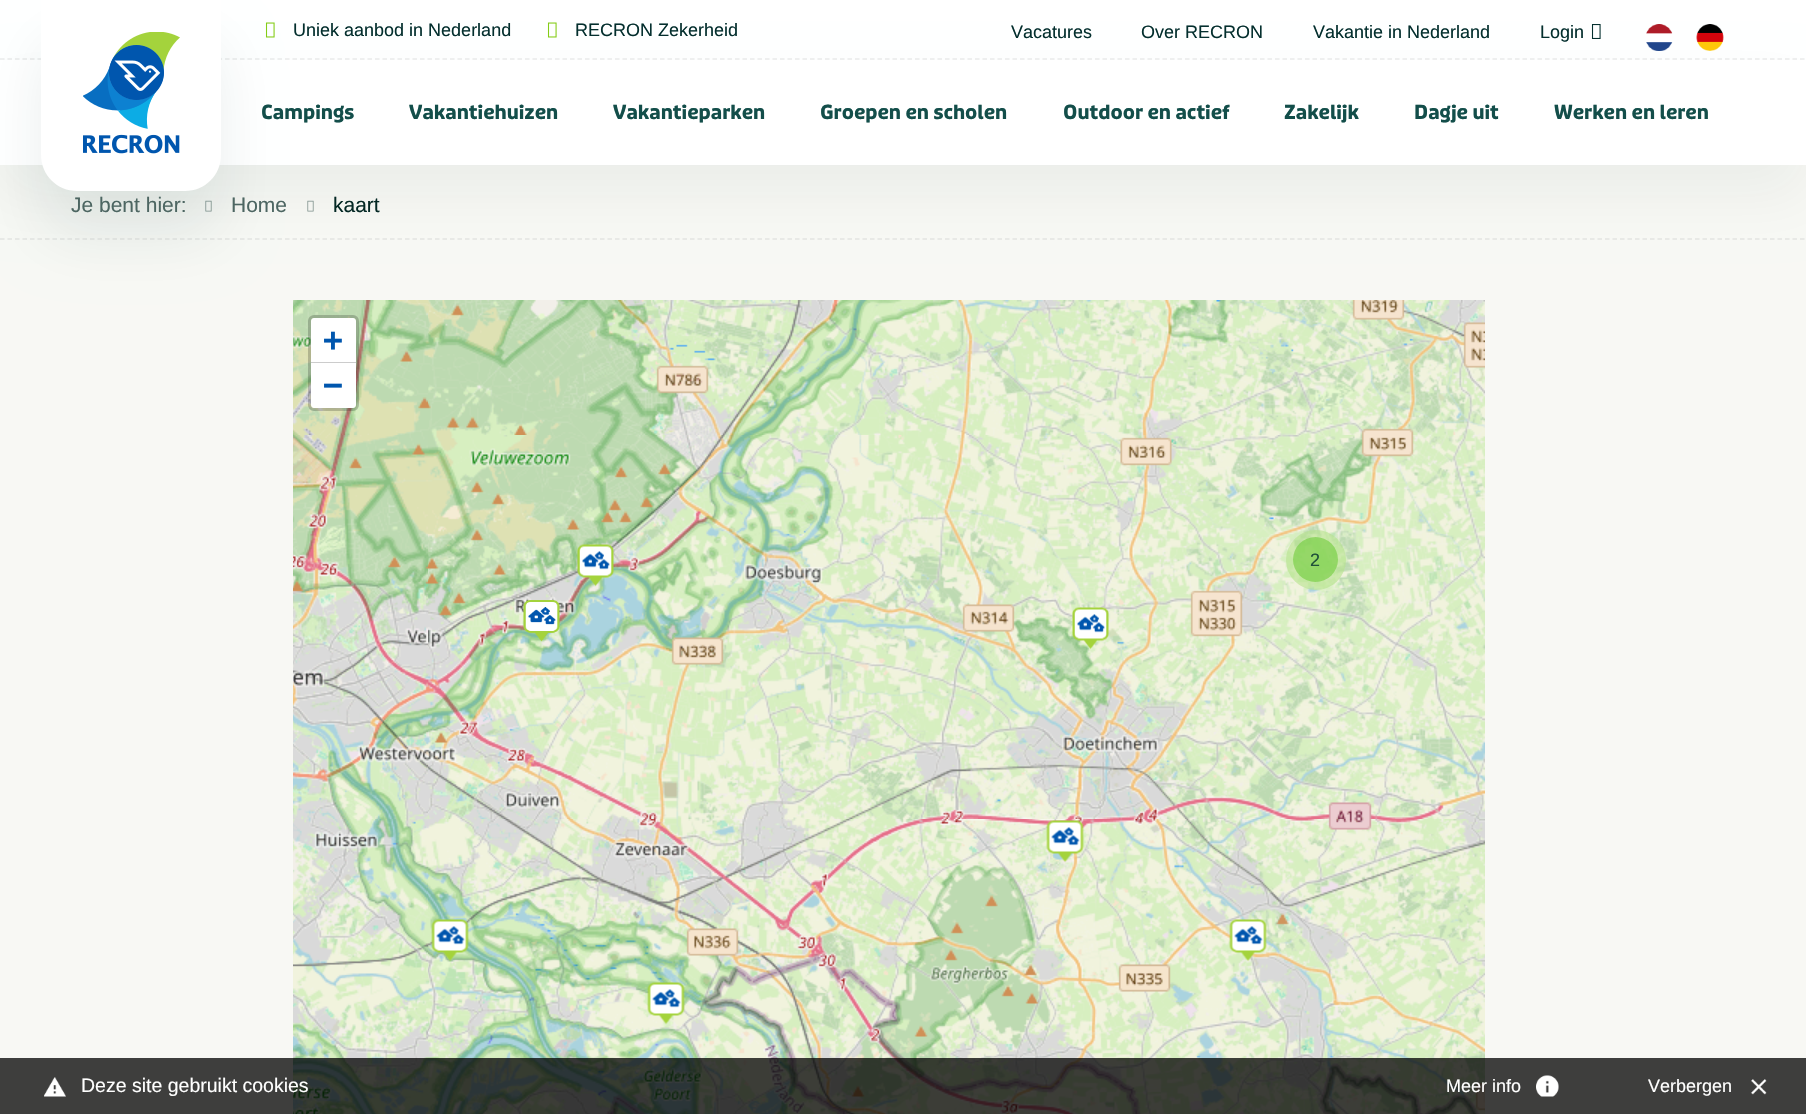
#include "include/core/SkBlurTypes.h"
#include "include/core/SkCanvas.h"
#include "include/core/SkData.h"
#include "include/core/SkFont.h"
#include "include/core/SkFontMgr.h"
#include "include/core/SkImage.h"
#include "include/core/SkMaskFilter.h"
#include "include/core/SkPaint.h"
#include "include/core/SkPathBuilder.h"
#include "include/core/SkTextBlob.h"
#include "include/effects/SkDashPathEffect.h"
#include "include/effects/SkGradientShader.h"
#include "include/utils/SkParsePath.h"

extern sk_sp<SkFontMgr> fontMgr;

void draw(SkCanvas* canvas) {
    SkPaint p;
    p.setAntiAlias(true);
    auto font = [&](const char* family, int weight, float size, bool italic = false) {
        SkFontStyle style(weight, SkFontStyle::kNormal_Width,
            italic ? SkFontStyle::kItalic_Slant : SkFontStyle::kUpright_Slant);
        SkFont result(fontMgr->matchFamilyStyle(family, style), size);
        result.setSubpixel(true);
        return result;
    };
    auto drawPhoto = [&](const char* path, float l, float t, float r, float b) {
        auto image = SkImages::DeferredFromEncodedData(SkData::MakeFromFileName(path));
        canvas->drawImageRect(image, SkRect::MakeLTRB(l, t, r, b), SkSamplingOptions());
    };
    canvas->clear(0xFFF8F8F4);
    p.setColor(0xFFFFFFFF);
    canvas->drawRect(SkRect::MakeLTRB(0, 0, 1806, 60), p);
    p.setStyle(SkPaint::kStroke_Style);
    p.setStrokeWidth(1.5f);
    p.setColor(0xFFEBEBEB);
    p.setPathEffect(SkDashPathEffect::Make({{4.5f, 3}}, 0));
    canvas->drawPath(SkPathBuilder().moveTo(0, 59).lineTo(1806, 59).detach(), p);
    p.setPathEffect(nullptr);
    p.setColor(0xFFE5E5E2);
    p.setPathEffect(SkDashPathEffect::Make({{4.5f, 3}}, 0));
    canvas->drawPath(SkPathBuilder().moveTo(0, 239).lineTo(1806, 239).detach(), p);
    p.setPathEffect(nullptr);
    drawPhoto("media/7.png", 205, 200, 212, 212);
    drawPhoto("media/7.png", 307, 200, 314, 212);
    p.setStyle(SkPaint::kFill_Style);
    p.setColor(0x0D042F2E);
    p.setMaskFilter(SkMaskFilter::MakeBlur(kNormal_SkBlurStyle, 28.5f));
    canvas->drawRect(SkRect::MakeLTRB(0, 90, 1806, 195), p);
    p.setMaskFilter(nullptr);
    p.setColor(0xFFFFFFFF);
    canvas->drawRect(SkRect::MakeLTRB(0, 60, 1806, 165), p);
    drawPhoto("media/8.png", 293, 300, 428, 435);
    p.setColor(0x14042F2E);
    p.setMaskFilter(SkMaskFilter::MakeBlur(kNormal_SkBlurStyle, 28.5f));
    canvas->drawRoundRect(SkRect::MakeLTRB(41, 41, 221, 236), 36, 36, p);
    p.setMaskFilter(nullptr);
    drawPhoto("media/1.png", 265, 22, 275, 38);
    auto font1 = font("Liberation Sans", 400, 18);
    p.setColor(0xFF042F2E);
    canvas->drawString("Uniek aanbod in Nederland", 293, 36, font1, p);
    drawPhoto("media/2.png", 547, 22, 557, 38);
    {
        const struct { const char* s; float x, y; } items[] = {
            {"RECRON Zekerheid", 575, 36},
            {"Vacatures", 1011, 38},
            {"Over RECRON", 1141, 38},
            {"Vakantie in Nederland", 1313, 38},
            {"Login", 1540, 38},
        };
        for (auto [s, x, y] : items) {
            canvas->drawString(s, x, y, font1, p);
        }
    }
    drawPhoto("media/3.png", 1591, 24, 1601, 39);
    drawPhoto("media/4.png", 1646, 24, 1673, 51);
    drawPhoto("media/5.png", 1696, 24, 1724, 51);
    p.setColor(0xFFFFFFFF);
    canvas->drawPath(SkPathBuilder().moveTo(41, -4).lineTo(221, -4).lineTo(221, 155).cubicTo(221, 175, 205, 191, 185, 191).lineTo(77, 191).cubicTo(57, 191, 41, 175, 41, 155).close().detach(), p);
    drawPhoto("media/6.png", 83, 32, 180, 154);
    auto font2 = font("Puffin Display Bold", 700, 19.5f);
    p.setColor(0xFF134E4A);
    {
        const struct { const char* s; float x, y; } items[] = {
            {"Campings", 261, 119},
            {"Vakantiehuizen", 409, 119},
            {"Vakantieparken", 613, 119},
            {"Groepen en scholen", 820, 119},
            {"Outdoor en actief", 1063, 119},
            {"Zakelijk", 1284, 119},
            {"Dagje uit", 1414, 119},
            {"Werken en leren", 1554, 119},
        };
        for (auto [s, x, y] : items) {
            canvas->drawString(s, x, y, font2, p);
        }
    }
    auto font3 = font("Liberation Sans", 400, 21);
    p.setColor(0xFF4D6662);
    canvas->drawString("Je bent hier:", 71, 212, font3, p);
    canvas->drawString("Home", 231, 212, font3, p);
    p.setColor(0xFF042824);
    canvas->drawString("kaart", 333, 212, font3, p);
    p.setStyle(SkPaint::kStroke_Style);
    p.setStrokeWidth(3);
    p.setColor(0x33000000);
    canvas->drawRoundRect(SkRect::MakeLTRB(309.5f, 316.5f, 357.5f, 409.5f), 4.5f, 4.5f, p);
    p.setStyle(SkPaint::kFill_Style);
    p.setColor(0xFFFFFFFF);
    canvas->drawPath(SkPathBuilder().moveTo(314, 318).lineTo(353, 318).cubicTo(354.5f, 318, 356, 319.5f, 356, 321).lineTo(356, 363).lineTo(311, 363).lineTo(311, 321).cubicTo(311, 319.5f, 312.5f, 318, 314, 318).close().detach(), p);
    p.setColor(0xFFCCCCCC);
    canvas->drawRect(SkRect::MakeLTRB(311, 362, 356, 363), p);
    auto font4 = font("DejaVu Sans Mono", 700, 33);
    p.setColor(0xFF0056AE);
    canvas->drawString("+", 323, 351, font4, p);
    p.setColor(0xFFFFFFFF);
    canvas->drawPath(SkPathBuilder().moveTo(311, 363).lineTo(356, 363).lineTo(356, 405).cubicTo(356, 406.5f, 354.5f, 408, 353, 408).lineTo(314, 408).cubicTo(312.5f, 408, 311, 406.5f, 311, 405).close().detach(), p);
    p.setColor(0xFF0056AE);
    canvas->drawString("−", 323, 396, font4, p);
    drawPhoto("media/9.png", 428, 300, 812, 435);
    drawPhoto("media/10.png", 811, 300, 1196, 435);
    drawPhoto("media/11.png", 1195, 300, 1485, 435);
    drawPhoto("media/12.png", 293, 435, 428, 819);
    drawPhoto("media/13.png", 428, 435, 812, 819);
    drawPhoto("media/14.png", 811, 435, 1196, 819);
    drawPhoto("media/15.png", 1195, 435, 1485, 819);
    drawPhoto("media/16.png", 293, 819, 428, 1114);
    drawPhoto("media/17.png", 428, 819, 812, 1114);
    drawPhoto("media/18.png", 811, 819, 1196, 1114);
    drawPhoto("media/19.png", 1195, 819, 1485, 1114);
    drawPhoto("media/20.png", 577, 544, 614, 587);
    p.setColor(0x99B5E28C);
    canvas->drawCircle(1316, 560, 30, p);
    p.setColor(0x996ECC39);
    canvas->drawCircle(1315.5f, 559.5f, 22.5f, p);
    p.setColor(0xFF205139);
    canvas->drawString("2", 1310, 566, font1, p);
    drawPhoto("media/21.png", 523, 600, 560, 642);
    drawPhoto("media/22.png", 1072, 607, 1109, 650);
    drawPhoto("media/23.png", 1046, 820, 1084, 863);
    drawPhoto("media/24.png", 431, 919, 469, 962);
    drawPhoto("media/25.png", 1229, 919, 1267, 962);
    drawPhoto("media/26.png", 647, 982, 685, 1025);
    p.setColor(0x80000000);
    canvas->drawRect(SkRect::MakeLTRB(0, 1058, 1806, 1114), p);
    canvas->drawRect(SkRect::MakeLTRB(0, 1058, 1806, 1114), p);
    drawPhoto("media/27.png", 44, 1077, 66, 1097);
    auto font5 = font("Liberation Sans", 400, 19.5f);
    p.setColor(0xFFFFFFFF);
    canvas->drawString("Deze site gebruikt cookies", 81, 1092, font5, p);
    canvas->drawString("Meer info", 1446, 1092, font1, p);
    drawPhoto("media/28.png", 1536, 1075, 1559, 1097);
    canvas->drawString("Verbergen", 1648, 1092, font1, p);
    drawPhoto("media/29.png", 1751, 1079, 1767, 1095);
}
